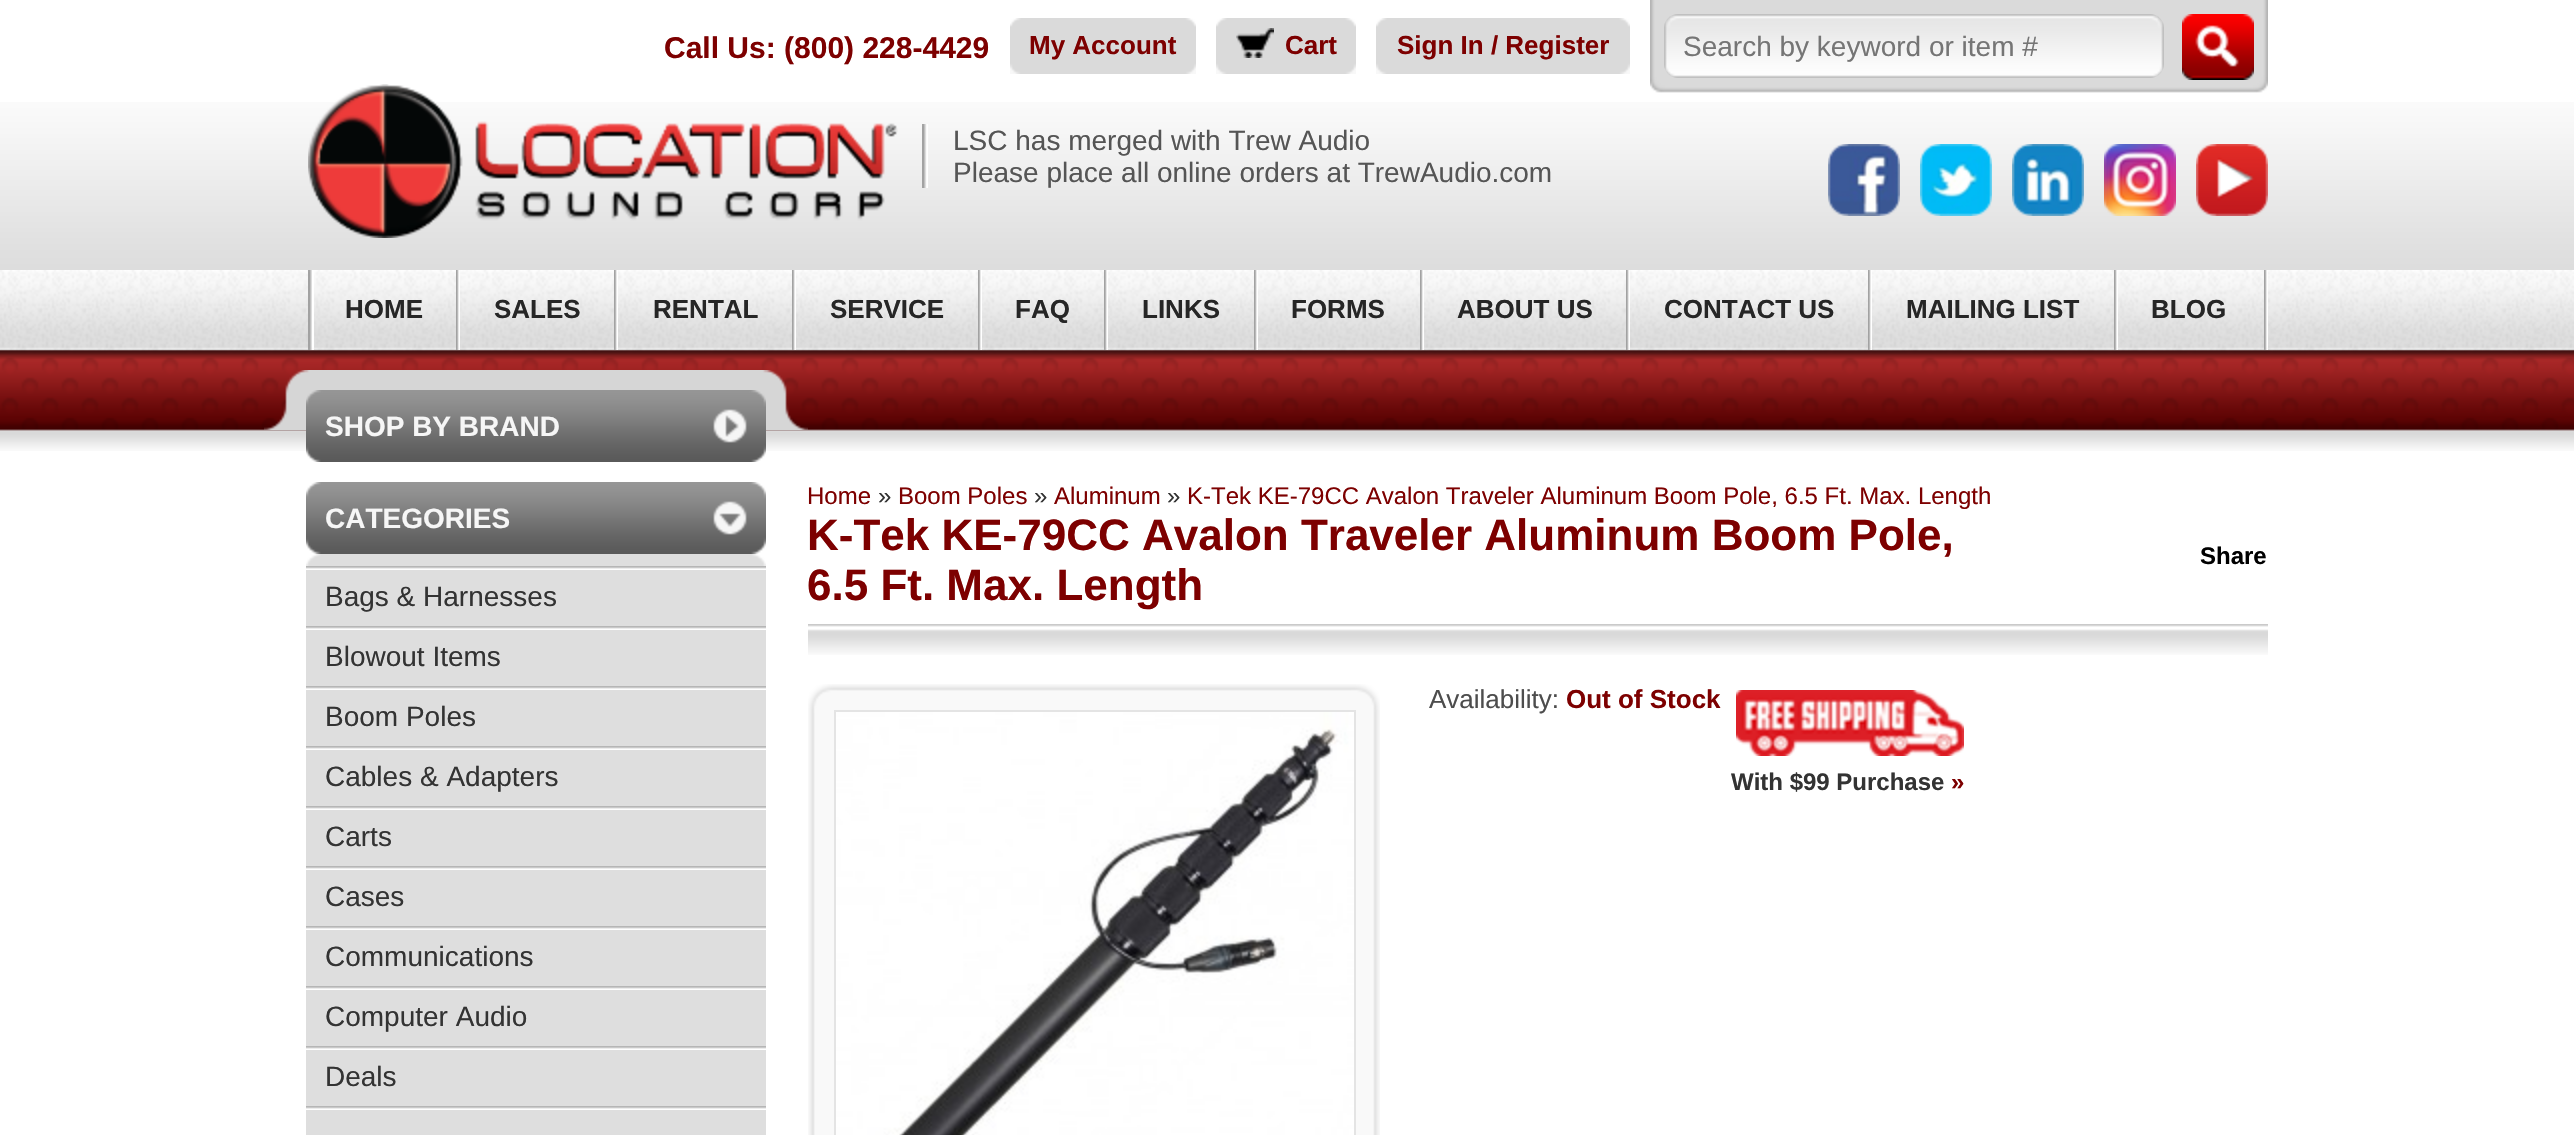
#include "include/core/SkBlurTypes.h"
#include "include/core/SkCanvas.h"
#include "include/core/SkData.h"
#include "include/core/SkFont.h"
#include "include/core/SkFontMgr.h"
#include "include/core/SkImage.h"
#include "include/core/SkMaskFilter.h"
#include "include/core/SkPaint.h"
#include "include/core/SkPathBuilder.h"
#include "include/core/SkTextBlob.h"
#include "include/effects/SkDashPathEffect.h"
#include "include/effects/SkGradientShader.h"
#include "include/utils/SkParsePath.h"

extern sk_sp<SkFontMgr> fontMgr;

void draw(SkCanvas* canvas) {
    SkPaint p;
    p.setAntiAlias(true);
    auto font = [&](const char* family, int weight, float size, bool italic = false) {
        SkFontStyle style(weight, SkFontStyle::kNormal_Width,
            italic ? SkFontStyle::kItalic_Slant : SkFontStyle::kUpright_Slant);
        SkFont result(fontMgr->matchFamilyStyle(family, style), size);
        result.setSubpixel(true);
        return result;
    };
    auto drawPhoto = [&](const char* path, float l, float t, float r, float b) {
        auto image = SkImages::DeferredFromEncodedData(SkData::MakeFromFileName(path));
        canvas->drawImageRect(image, SkRect::MakeLTRB(l, t, r, b), SkSamplingOptions());
    };
    canvas->clear(0xFFFFFFFF);
    drawPhoto("media/1.png", 0, 102, 2574, 270);
    auto font1 = font("Liberation Sans", 700, 30);
    p.setColor(0xFF7D0000);
    canvas->drawString("Call Us: (800) 228-4429", 664, 58, font1, p);
    drawPhoto("media/2.png", 1010, 18, 1030, 74);
    drawPhoto("media/3.png", 1030, 18, 1196, 74);
    auto font2 = font("Liberation Sans", 700, 26);
    canvas->drawString("My Account", 1029, 54, font2, p);
    drawPhoto("media/2.png", 1216, 18, 1236, 74);
    drawPhoto("media/4.png", 1236, 18, 1356, 74);
    drawPhoto("media/5.png", 1236, 28, 1274, 58);
    canvas->drawString("Cart", 1285, 54, font2, p);
    drawPhoto("media/2.png", 1376, 18, 1396, 74);
    drawPhoto("media/6.png", 1396, 18, 1630, 74);
    canvas->drawString("Sign In / Register", 1397, 54, font2, p);
    drawPhoto("media/7.png", 1650, 0, 2268, 93);
    drawPhoto("media/8.png", 1664, 14, 2164, 78);
    auto font3 = font("Liberation Sans", 400, 28);
    p.setColor(0xFF757575);
    canvas->drawString("Search by keyword or item #", 1683, 56, font3, p);
    drawPhoto("media/9.png", 2182, 14, 2254, 80);
    drawPhoto("media/10.png", 308, 84, 898, 238);
    drawPhoto("media/11.png", 922, 124, 928, 188);
    p.setColor(0xFF555555);
    canvas->drawString("LSC has merged with Trew Audio", 953, 150, font3, p);
    canvas->drawString("Please place all online orders at TrewAudio.com", 953, 182, font3, p);
    drawPhoto("media/12.png", 1828, 144, 1900, 216);
    drawPhoto("media/13.png", 1920, 144, 1992, 216);
    drawPhoto("media/14.png", 2012, 144, 2084, 216);
    drawPhoto("media/15.png", 2104, 144, 2176, 216);
    drawPhoto("media/16.png", 2196, 144, 2268, 216);
    drawPhoto("media/20.png", 0, 350, 2574, 451);
    drawPhoto("media/17.png", 0, 270, 2574, 359);
    drawPhoto("media/18.png", 2264, 270, 2268, 350);
    drawPhoto("media/19.png", 308, 270, 314, 350);
    p.setColor(0xFF262626);
    canvas->drawString("HOME", 345, 318, font2, p);
    drawPhoto("media/18.png", 456, 270, 460, 350);
    canvas->drawString("SALES", 494, 318, font2, p);
    drawPhoto("media/18.png", 614, 270, 618, 350);
    canvas->drawString("RENTAL", 653, 318, font2, p);
    drawPhoto("media/18.png", 792, 270, 796, 350);
    canvas->drawString("SERVICE", 830, 318, font2, p);
    drawPhoto("media/18.png", 978, 270, 982, 350);
    canvas->drawString("FAQ", 1015, 318, font2, p);
    drawPhoto("media/18.png", 1104, 270, 1108, 350);
    canvas->drawString("LINKS", 1142, 318, font2, p);
    drawPhoto("media/18.png", 1254, 270, 1258, 350);
    canvas->drawString("FORMS", 1291, 318, font2, p);
    drawPhoto("media/18.png", 1420, 270, 1424, 350);
    canvas->drawString("ABOUT US", 1457, 318, font2, p);
    drawPhoto("media/18.png", 1626, 270, 1630, 350);
    canvas->drawString("CONTACT US", 1664, 318, font2, p);
    drawPhoto("media/18.png", 1868, 270, 1872, 350);
    canvas->drawString("MAILING LIST", 1906, 318, font2, p);
    drawPhoto("media/18.png", 2114, 270, 2118, 350);
    canvas->drawString("BLOG", 2151, 318, font2, p);
    drawPhoto("media/21.png", 264, 370, 808, 430);
    drawPhoto("media/22.png", 306, 390, 766, 462);
    auto font4 = font("Liberation Sans", 700, 28);
    p.setColor(0xFFF6F6F6);
    canvas->drawString("SHOP BY BRAND", 325, 436, font4, p);
    drawPhoto("media/23.png", 306, 482, 766, 554);
    canvas->drawString("CATEGORIES", 325, 528, font4, p);
    drawPhoto("media/24.png", 306, 554, 766, 566);
    p.setColor(0xFFDEDEDE);
    canvas->drawRect(SkRect::MakeLTRB(306, 570, 766, 1135), p);
    drawPhoto("media/25.png", 306, 566, 766, 570);
    p.setColor(0xFF333333);
    canvas->drawString("Bags & Harnesses", 325, 606, font3, p);
    drawPhoto("media/25.png", 306, 626, 766, 630);
    canvas->drawString("Blowout Items", 325, 666, font3, p);
    drawPhoto("media/25.png", 306, 686, 766, 690);
    canvas->drawString("Boom Poles", 325, 726, font3, p);
    drawPhoto("media/25.png", 306, 746, 766, 750);
    canvas->drawString("Cables & Adapters", 325, 786, font3, p);
    drawPhoto("media/25.png", 306, 806, 766, 810);
    canvas->drawString("Carts", 325, 846, font3, p);
    drawPhoto("media/25.png", 306, 866, 766, 870);
    canvas->drawString("Cases", 325, 906, font3, p);
    drawPhoto("media/25.png", 306, 926, 766, 930);
    canvas->drawString("Communications", 325, 966, font3, p);
    drawPhoto("media/25.png", 306, 986, 766, 990);
    canvas->drawString("Computer Audio", 325, 1026, font3, p);
    drawPhoto("media/25.png", 306, 1046, 766, 1050);
    canvas->drawString("Deals", 325, 1086, font3, p);
    drawPhoto("media/25.png", 306, 1106, 766, 1110);
    auto font5 = font("Liberation Sans", 400, 24);
    p.setColor(0xFF7D0000);
    canvas->drawString("Home", 807, 504, font5, p);
    p.setColor(0xFF333333);
    canvas->drawString("»", 878, 504, font5, p);
    p.setColor(0xFF7D0000);
    canvas->drawString("Boom Poles", 898, 504, font5, p);
    p.setColor(0xFF333333);
    canvas->drawString("»", 1034, 504, font5, p);
    p.setColor(0xFF7D0000);
    canvas->drawString("Aluminum", 1054, 504, font5, p);
    p.setColor(0xFF333333);
    canvas->drawString("»", 1167, 504, font5, p);
    p.setColor(0xFF7D0000);
    canvas->drawString("K-Tek KE-79CC Avalon Traveler Aluminum Boom Pole, 6.5 Ft. Max. Length", 1187, 504, font5, p);
    drawPhoto("media/26.png", 808, 624, 2268, 655);
    auto font6 = font("Liberation Sans", 700, 44);
    canvas->drawString("K-Tek KE-79CC Avalon Traveler Aluminum Boom Pole,", 807, 550, font6, p);
    auto font7 = font("Liberation Sans", 700, 24);
    p.setColor(0xFF000000);
    canvas->drawString("Share", 2200, 564, font7, p);
    p.setColor(0xFF7D0000);
    canvas->drawString("6.5 Ft. Max. Length", 807, 600, font6, p);
    drawPhoto("media/27.png", 808, 684, 1380, 1135);
    p.setStyle(SkPaint::kStroke_Style);
    p.setStrokeWidth(2);
    p.setColor(0xFFE4E4E4);
    canvas->drawRect(SkRect::MakeLTRB(835, 711, 1355, 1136), p);
    drawPhoto("media/28.png", 836, 712, 1354, 1135);
    auto font8 = font("Liberation Sans", 400, 26);
    p.setStyle(SkPaint::kFill_Style);
    p.setColor(0xFF4D4D4D);
    canvas->drawString("Availability:", 1429, 708, font8, p);
    p.setColor(0xFF7D0000);
    canvas->drawString("Out of Stock", 1566, 708, font2, p);
    drawPhoto("media/29.png", 1736, 690, 1964, 756);
    p.setColor(0xFF333333);
    canvas->drawString("With $99 Purchase", 1731, 790, font7, p);
    p.setColor(0xFF7D0000);
    canvas->drawString("»", 1951, 790, font7, p);
}
